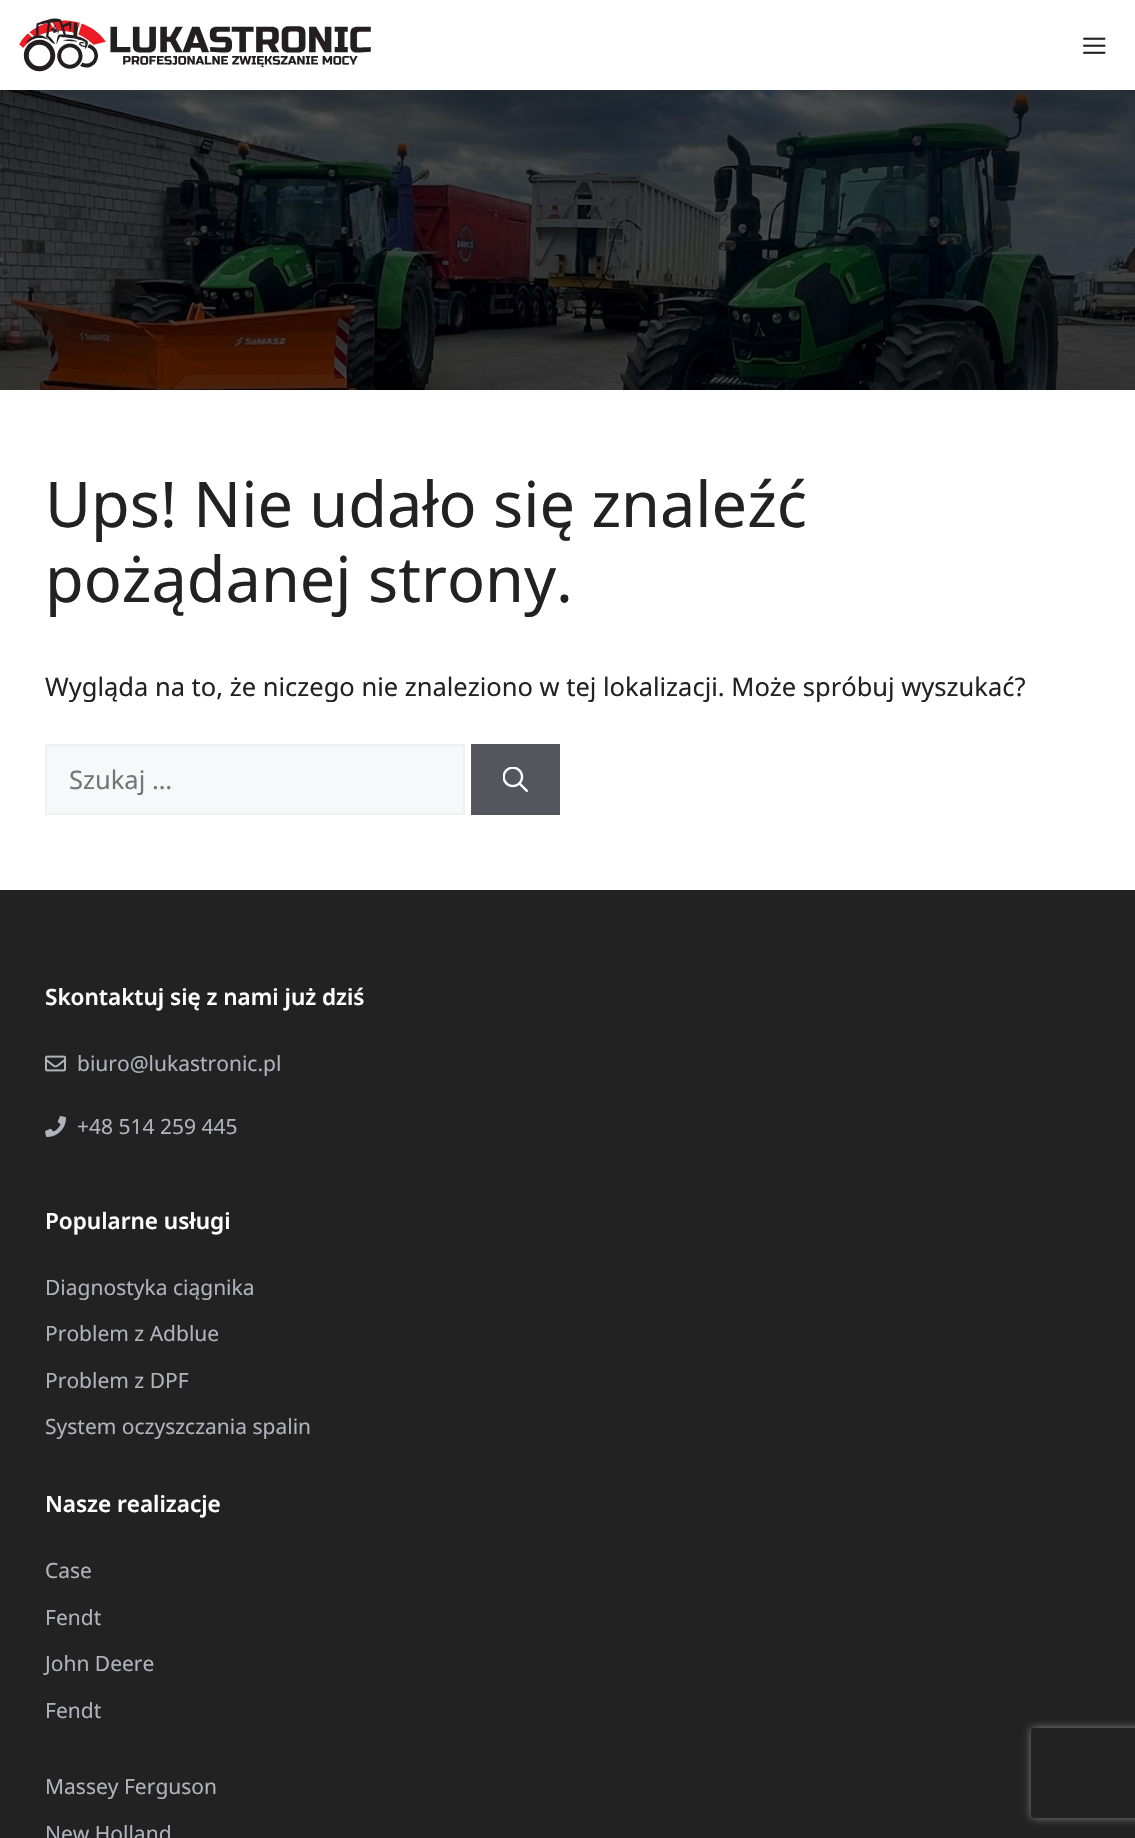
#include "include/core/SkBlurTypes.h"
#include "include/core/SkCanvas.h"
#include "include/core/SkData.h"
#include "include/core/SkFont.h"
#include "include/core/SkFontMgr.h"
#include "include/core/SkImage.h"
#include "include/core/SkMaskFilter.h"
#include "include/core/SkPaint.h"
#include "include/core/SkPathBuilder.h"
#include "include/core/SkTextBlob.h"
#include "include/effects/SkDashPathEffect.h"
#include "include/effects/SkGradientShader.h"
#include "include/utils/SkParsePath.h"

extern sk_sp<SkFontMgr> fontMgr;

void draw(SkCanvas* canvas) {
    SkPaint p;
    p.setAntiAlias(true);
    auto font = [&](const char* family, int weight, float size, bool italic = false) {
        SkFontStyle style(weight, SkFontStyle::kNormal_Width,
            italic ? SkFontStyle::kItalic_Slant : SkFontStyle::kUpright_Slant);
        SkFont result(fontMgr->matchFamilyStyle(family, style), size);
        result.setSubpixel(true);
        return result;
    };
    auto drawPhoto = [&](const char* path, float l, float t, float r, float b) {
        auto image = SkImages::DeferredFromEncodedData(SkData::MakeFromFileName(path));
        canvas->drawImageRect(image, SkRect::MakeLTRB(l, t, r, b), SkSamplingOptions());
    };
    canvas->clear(0xFFFFFFFF);
    drawPhoto("media/1.png", 19, 18, 371, 72);
    drawPhoto("media/2.png", 1083, 37, 1106, 54);
    p.setColor(0xFF000000);
    canvas->drawRect(SkRect::MakeLTRB(0, 90, 1135, 390), p);
    drawPhoto("media/3.png", 0, 90, 1135, 390);
    auto font1 = font("Noto Sans", 400, 63);
    p.setColor(0xFF222222);
    canvas->drawString("Ups! Nie udało się znaleźć", 45, 527, font1, p);
    canvas->drawString("pożądanej strony.", 45, 602, font1, p);
    auto font2 = font("Noto Sans", 400, 25.5f);
    canvas->drawString("Wygląda na to, że niczego nie znaleziono w tej lokalizacji. Może spróbuj wyszukać?", 45, 696, font2, p);
    p.setColor(0xFFF7F8F9);
    canvas->drawRect(SkRect::MakeLTRB(46, 745, 464, 814), p);
    p.setStyle(SkPaint::kStroke_Style);
    p.setStrokeWidth(2);
    p.setColor(0xFFF0F0F0);
    canvas->drawRect(SkRect::MakeLTRB(46, 745, 464, 814), p);
    p.setStyle(SkPaint::kFill_Style);
    p.setColor(0xFF757575);
    canvas->drawString("Szukaj …", 69, 789, font2, p);
    p.setColor(0xFF55555E);
    canvas->drawRect(SkRect::MakeLTRB(471, 744, 560, 815), p);
    drawPhoto("media/4.png", 503, 767, 528, 792);
    p.setColor(0xFF222222);
    canvas->drawRect(SkRect::MakeLTRB(0, 890, 1135, 1838), p);
    auto font3 = font("Noto Sans", 600, 22.5f);
    p.setColor(0xFFFFFFFF);
    canvas->drawString("Skontaktuj się z nami już dziś", 45, 1005, font3, p);
    drawPhoto("media/5.png", 45, 1055, 66, 1072);
    auto font4 = font("Noto Sans", 400, 21);
    p.setColor(0xFFB2B2BE);
    canvas->drawString("biuro@lukastronic.pl", 77, 1071, font4, p);
    drawPhoto("media/6.png", 45, 1116, 66, 1137);
    canvas->drawString("+48 514 259 445", 77, 1134, font4, p);
    p.setColor(0xFFFFFFFF);
    canvas->drawString("Popularne usługi", 45, 1229, font3, p);
    p.setColor(0xFFB2B2BE);
    {
        const struct { const char* s; float x, y; } items[] = {
            {"Diagnostyka ciągnika", 45, 1295},
            {"Problem z Adblue", 45, 1341},
            {"Problem z DPF", 45, 1388},
            {"System oczyszczania spalin", 45, 1434},
        };
        for (auto [s, x, y] : items) {
            canvas->drawString(s, x, y, font4, p);
        }
    }
    p.setColor(0xFFFFFFFF);
    canvas->drawString("Nasze realizacje", 45, 1512, font3, p);
    p.setColor(0xFFB2B2BE);
    {
        const struct { const char* s; float x, y; } items[] = {
            {"Case", 45, 1578},
            {"Fendt", 45, 1625},
            {"John Deere", 45, 1671},
            {"Fendt", 45, 1718},
            {"Massey Ferguson", 45, 1794},
            {"New Holland", 45, 1841},
        };
        for (auto [s, x, y] : items) {
            canvas->drawString(s, x, y, font4, p);
        }
    }
    canvas->save();
    canvas->clipPath(SkPathBuilder(SkPathFillType::kEvenOdd).moveTo(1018, 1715).lineTo(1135, 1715).lineTo(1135, 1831).lineTo(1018, 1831).close().moveTo(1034, 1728).lineTo(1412, 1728).cubicTo(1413.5f, 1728, 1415, 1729.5f, 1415, 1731).lineTo(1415, 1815).cubicTo(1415, 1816.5f, 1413.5f, 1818, 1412, 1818).lineTo(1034, 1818).cubicTo(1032.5f, 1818, 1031, 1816.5f, 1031, 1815).lineTo(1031, 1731).cubicTo(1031, 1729.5f, 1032.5f, 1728, 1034, 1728).close().detach(), true);
    p.setColor(0xFF808080);
    p.setMaskFilter(SkMaskFilter::MakeBlur(kNormal_SkBlurStyle, 4));
    canvas->drawRoundRect(SkRect::MakeLTRB(1031, 1728, 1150, 1818), 3, 3, p);
    p.setMaskFilter(nullptr);
    canvas->restore();
}
